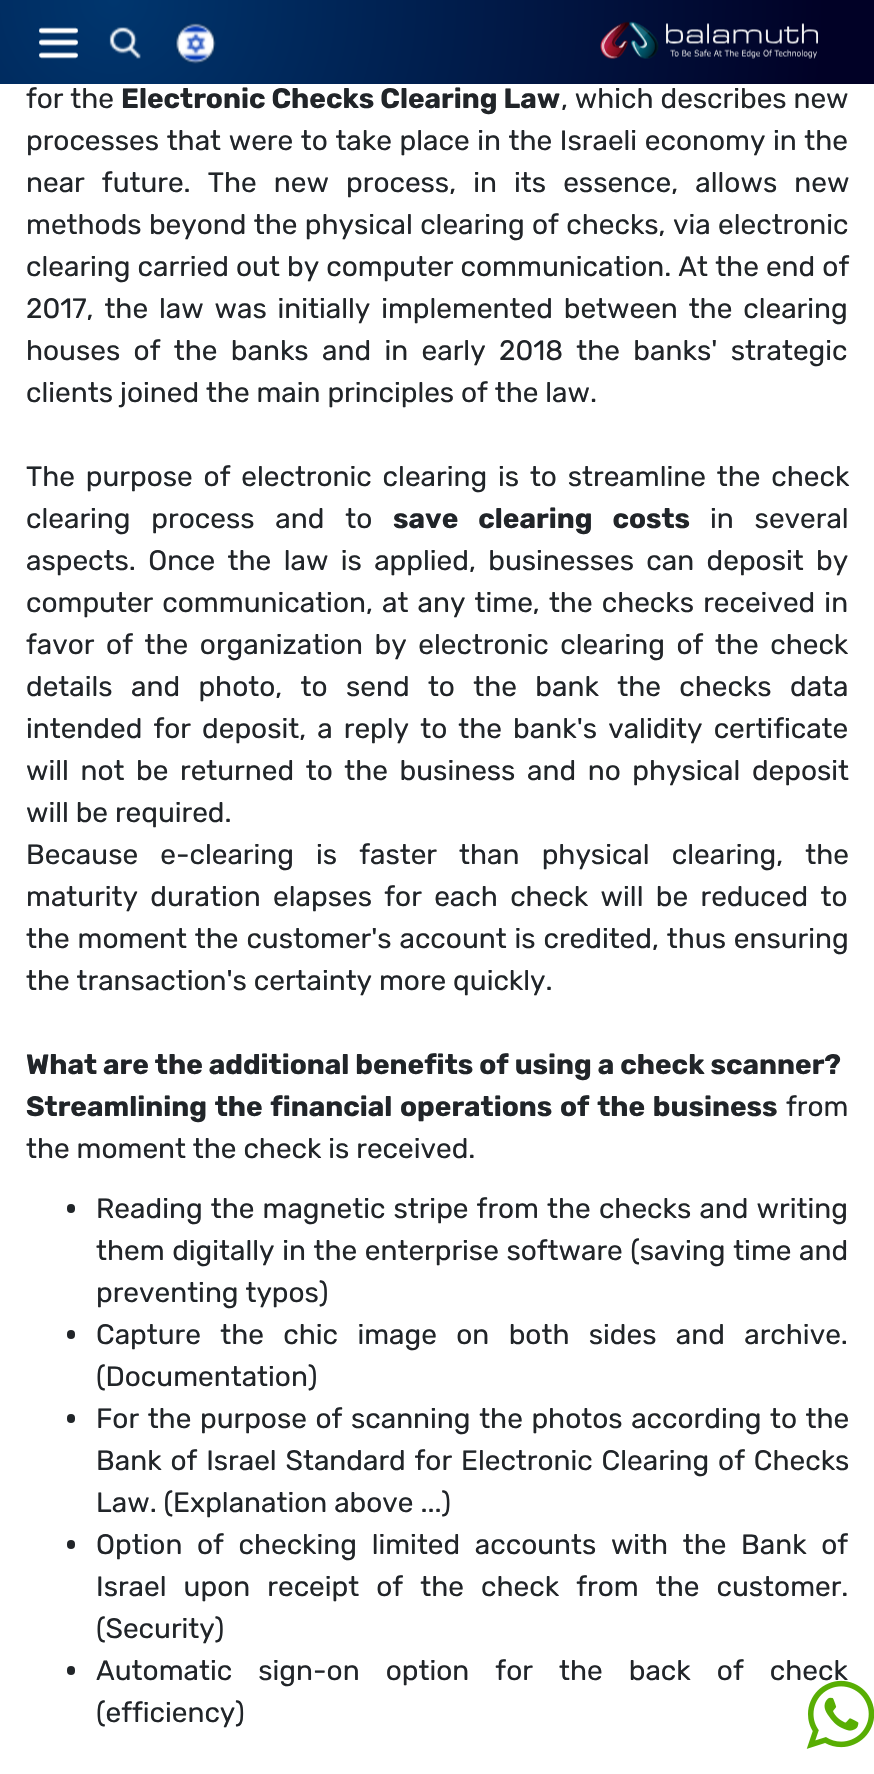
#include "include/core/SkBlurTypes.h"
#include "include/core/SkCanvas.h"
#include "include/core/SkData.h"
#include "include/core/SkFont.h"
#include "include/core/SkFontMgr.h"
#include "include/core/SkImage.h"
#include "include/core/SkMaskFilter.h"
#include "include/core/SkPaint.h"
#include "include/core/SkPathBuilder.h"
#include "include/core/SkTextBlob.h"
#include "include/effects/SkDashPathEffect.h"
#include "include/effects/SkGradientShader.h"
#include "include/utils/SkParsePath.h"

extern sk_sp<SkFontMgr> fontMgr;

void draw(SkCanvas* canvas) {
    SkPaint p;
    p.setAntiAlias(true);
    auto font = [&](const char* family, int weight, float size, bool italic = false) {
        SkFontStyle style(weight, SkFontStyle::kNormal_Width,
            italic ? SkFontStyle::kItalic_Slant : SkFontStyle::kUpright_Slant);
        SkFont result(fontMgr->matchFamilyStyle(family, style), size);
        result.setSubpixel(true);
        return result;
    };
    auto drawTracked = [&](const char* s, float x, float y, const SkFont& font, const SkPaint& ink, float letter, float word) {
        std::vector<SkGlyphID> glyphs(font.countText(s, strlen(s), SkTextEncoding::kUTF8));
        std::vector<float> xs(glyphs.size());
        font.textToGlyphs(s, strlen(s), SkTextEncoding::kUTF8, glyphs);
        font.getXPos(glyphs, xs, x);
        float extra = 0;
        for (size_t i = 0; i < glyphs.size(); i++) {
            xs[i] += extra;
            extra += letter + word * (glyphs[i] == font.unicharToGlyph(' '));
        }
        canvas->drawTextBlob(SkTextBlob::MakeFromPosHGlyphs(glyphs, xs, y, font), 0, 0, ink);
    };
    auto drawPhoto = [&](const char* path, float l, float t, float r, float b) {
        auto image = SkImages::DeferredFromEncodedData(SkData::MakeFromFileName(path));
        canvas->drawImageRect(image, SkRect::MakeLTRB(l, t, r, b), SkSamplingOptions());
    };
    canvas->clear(0xFFFFFFFF);
    {
        const SkColor colors[] = {0xFF00366E, 0xFF010126};
        const float stops[] = {0, 0.93f};
        p.setShader(SkGradientShader::MakeRadial({114, 0}, 766, colors, stops, 2, SkTileMode::kClamp));
        p.setAlpha(255);
    }
    canvas->drawRect(SkRect::MakeLTRB(0, 0, 874, 84), p);
    drawPhoto("media/1.png", 39, 27, 78, 59);
    drawPhoto("media/2.png", 109, 27, 141, 59);
    drawPhoto("media/3.png", 175, 23, 216, 64);
    drawPhoto("media/4.png", 600, 21, 818, 59);
    auto font1 = font("Rubik", 400, 28);
    p.setShader(nullptr);
    p.setColor(0xFF212529);
    canvas->drawString("for the", 26, 108, font1, p);
    auto font2 = font("Rubik", 700, 28);
    canvas->drawString("Electronic Checks Clearing Law", 121, 108, font2, p);
    canvas->drawString(", which describes new", 561, 108, font1, p);
    drawTracked("processes that were to take place in the Israeli economy in the", 26, 150, font1, p, 0, 0.75f);
    drawTracked("near future. The new process, in its essence, allows new", 26, 192, font1, p, 0, 10.25f);
    drawTracked("methods beyond the physical clearing of checks, via electronic", 26, 234, font1, p, 0, 0.5f);
    drawTracked("clearing carried out by computer communication. At the end of", 26, 276, font1, p, 0, 0.25f);
    drawTracked("2017, the law was initially implemented between the clearing", 26, 318, font1, p, 0, 4);
    drawTracked("houses of the banks and in early 2018 the banks' strategic", 26, 360, font1, p, 0, 6.5f);
    canvas->drawString("clients joined the main principles of the law.", 26, 402, font1, p);
    drawTracked("The purpose of electronic clearing is to streamline the check", 26, 486, font1, p, 0, 4);
    drawTracked("clearing process and to", 26, 528, font1, p, 0, 14);
    drawTracked("save clearing costs", 393, 528, font2, p, 0, 14);
    drawTracked("in several", 710, 528, font1, p, 0, 14);
    drawTracked("aspects. Once the law is applied, businesses can deposit by", 26, 570, font1, p, 0, 5.5f);
    drawTracked("computer communication, at any time, the checks received in", 26, 612, font1, p, 0, 2.25f);
    drawTracked("favor of the organization by electronic clearing of the check", 26, 654, font1, p, 0, 4.75f);
    drawTracked("details and photo, to send to the bank the checks data", 26, 696, font1, p, 0, 11.5f);
    drawTracked("intended for deposit, a reply to the bank's validity certificate", 26, 738, font1, p, 0, 4.25f);
    drawTracked("will not be returned to the business and no physical deposit", 26, 780, font1, p, 0, 4.75f);
    canvas->drawString("will be required.", 26, 822, font1, p);
    drawTracked("Because e-clearing is faster than physical clearing, the", 26, 864, font1, p, 0, 15.25f);
    drawTracked("maturity duration elapses for each check will be reduced to", 26, 906, font1, p, 0, 5.5f);
    drawTracked("the moment the customer's account is credited, thus ensuring", 26, 948, font1, p, 0, 1);
    canvas->drawString("the transaction's certainty more quickly.", 26, 990, font1, p);
    canvas->drawString("What are the additional benefits of using a check scanner?", 26, 1074, font2, p);
    drawTracked("Streamlining the financial operations of the business", 26, 1116, font2, p, 0, 1.75f);
    canvas->drawString("from", 786, 1116, font1, p);
    canvas->drawString("the moment the check is received.", 26, 1158, font1, p);
    canvas->drawRoundRect(SkRect::MakeLTRB(67, 1204, 75, 1213), 4, 4, p);
    drawTracked("Reading the magnetic stripe from the checks and writing", 96, 1218, font1, p, 0, 1.25f);
    drawTracked("them digitally in the enterprise software (saving time and", 96, 1260, font1, p, 0, 0.75f);
    canvas->drawString("preventing typos)", 96, 1302, font1, p);
    canvas->drawRoundRect(SkRect::MakeLTRB(67, 1330, 75, 1339), 4, 4, p);
    drawTracked("Capture the chic image on both sides and archive.", 96, 1344, font1, p, 0, 12.5f);
    canvas->drawString("(Documentation)", 96, 1386, font1, p);
    canvas->drawRoundRect(SkRect::MakeLTRB(67, 1414, 75, 1423), 4, 4, p);
    drawTracked("For the purpose of scanning the photos according to the", 96, 1428, font1, p, 0, 1.75f);
    drawTracked("Bank of Israel Standard for Electronic Clearing of Checks", 96, 1470, font1, p, 0, 2);
    canvas->drawString("Law. (Explanation above ...)", 96, 1512, font1, p);
    canvas->drawRoundRect(SkRect::MakeLTRB(67, 1540, 75, 1549), 4, 4, p);
    drawTracked("Option of checking limited accounts with the Bank of", 96, 1554, font1, p, 0, 7.75f);
    drawTracked("Israel upon receipt of the check from the customer.", 96, 1596, font1, p, 0, 10.25f);
    canvas->drawString("(Security)", 96, 1638, font1, p);
    canvas->drawRoundRect(SkRect::MakeLTRB(67, 1666, 75, 1675), 4, 4, p);
    drawTracked("Automatic sign-on option for the back of check", 96, 1680, font1, p, 0, 19.25f);
    canvas->drawString("(efficiency)", 96, 1722, font1, p);
    drawPhoto("media/5.png", 806, 1680, 874, 1749);
}
